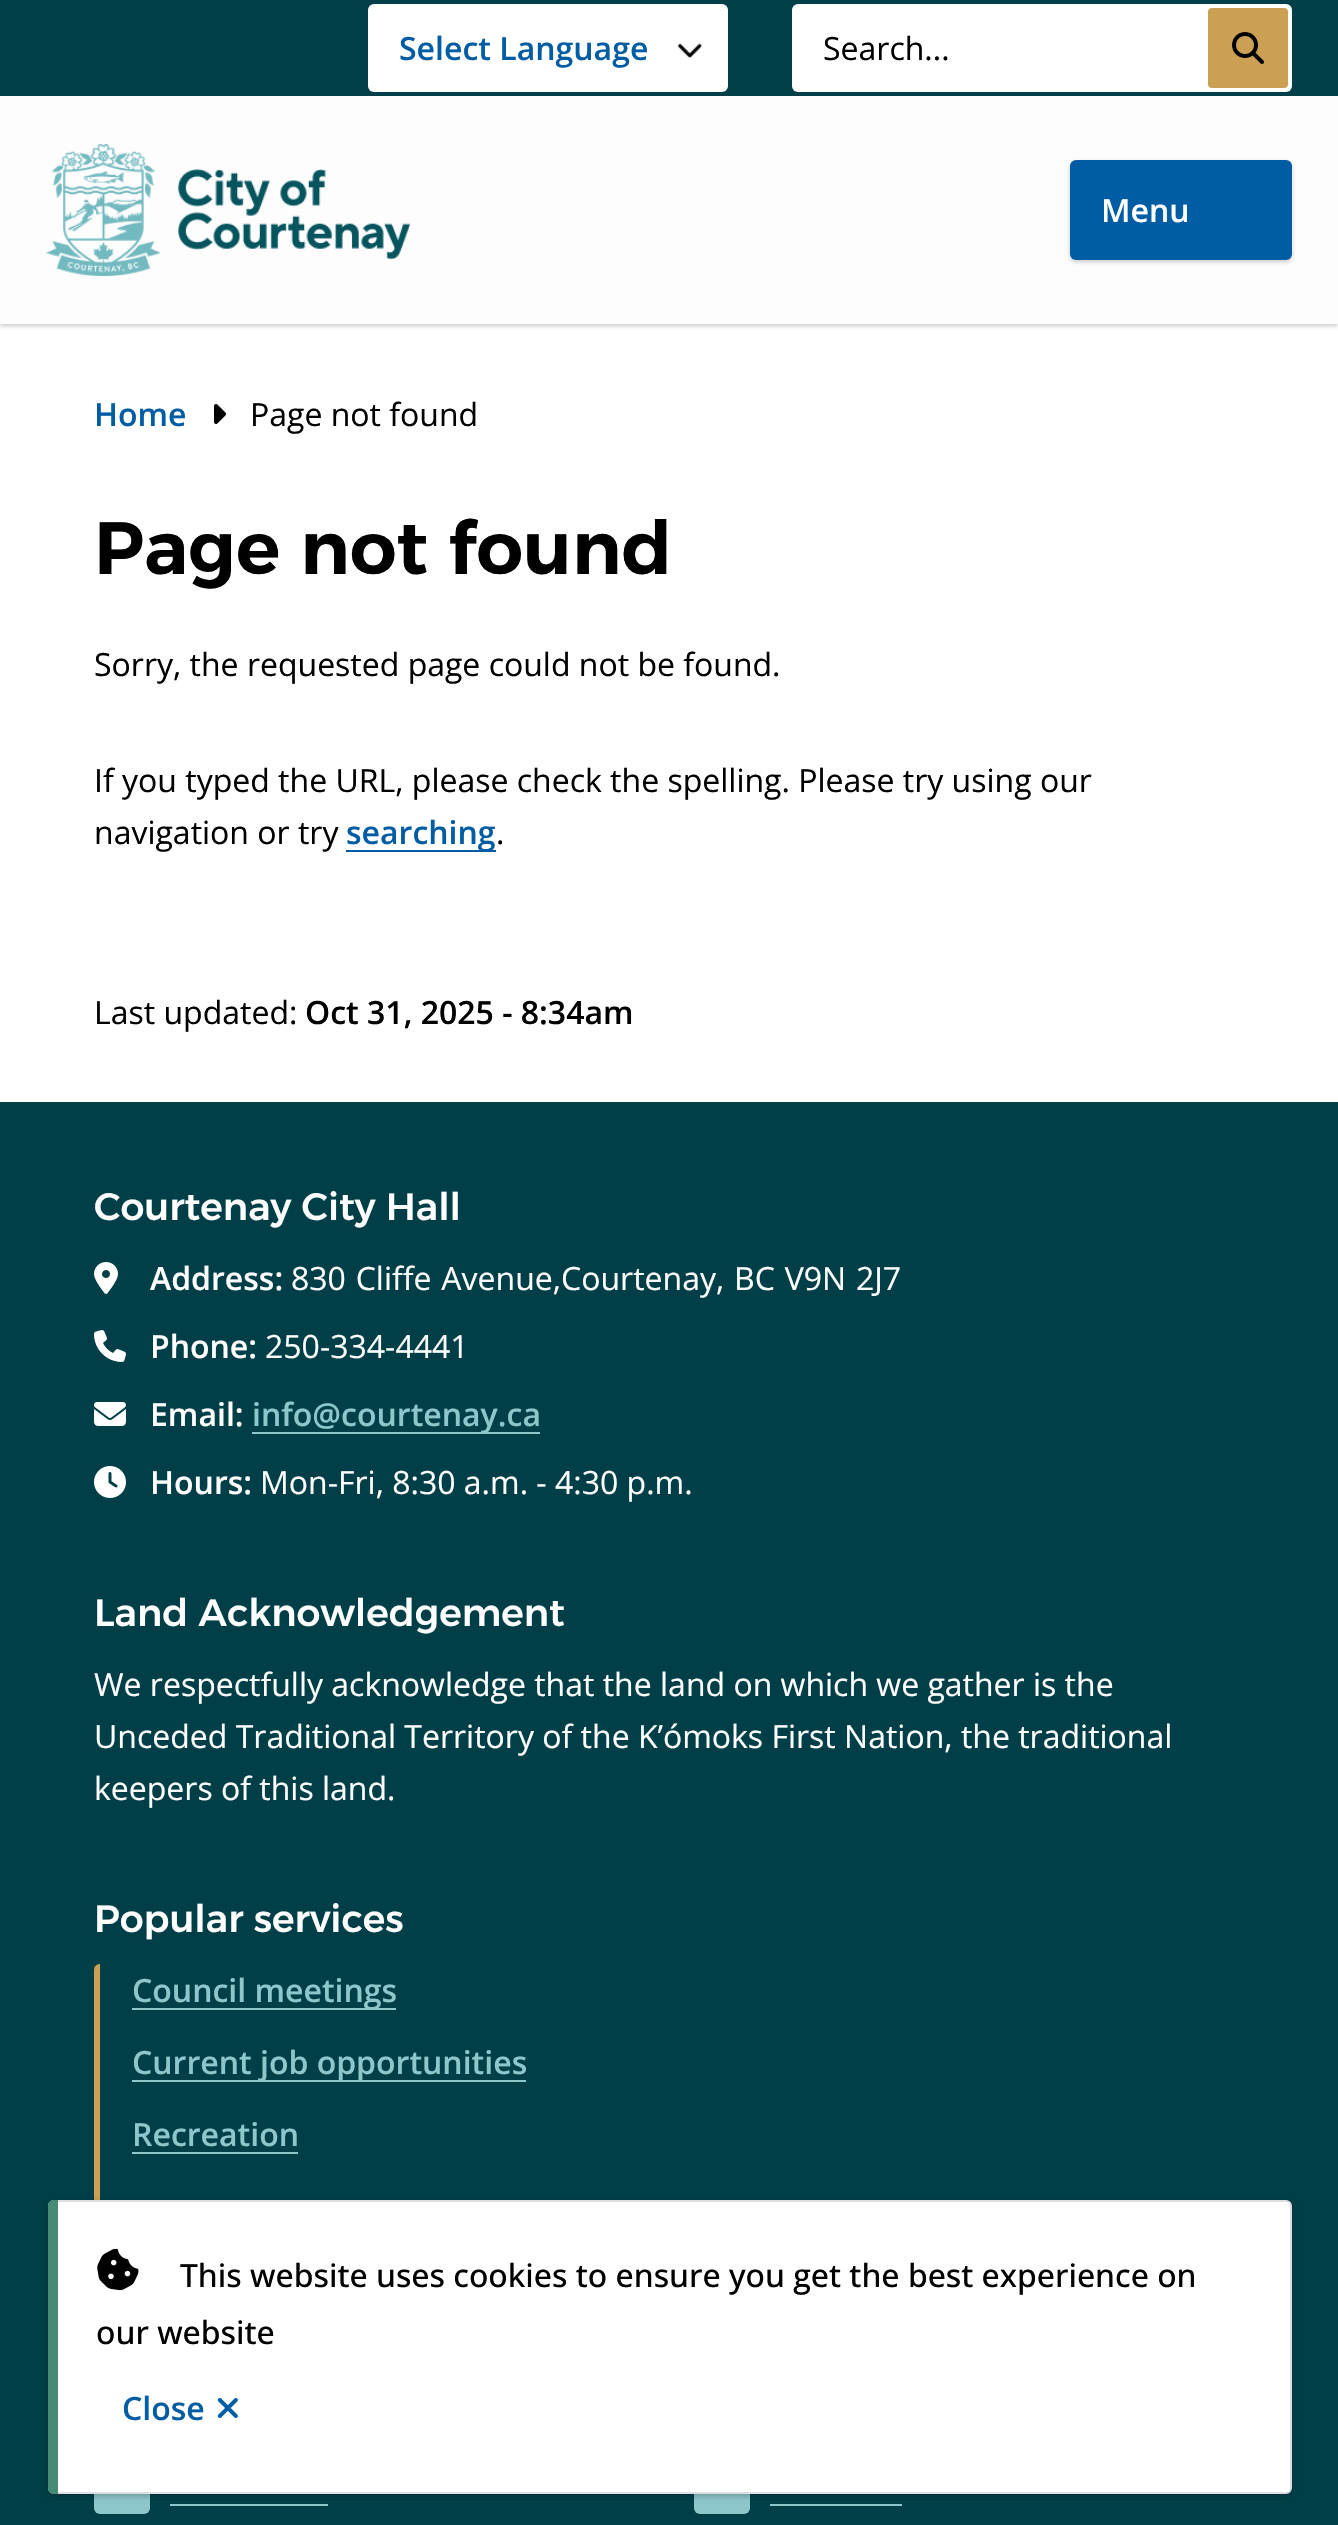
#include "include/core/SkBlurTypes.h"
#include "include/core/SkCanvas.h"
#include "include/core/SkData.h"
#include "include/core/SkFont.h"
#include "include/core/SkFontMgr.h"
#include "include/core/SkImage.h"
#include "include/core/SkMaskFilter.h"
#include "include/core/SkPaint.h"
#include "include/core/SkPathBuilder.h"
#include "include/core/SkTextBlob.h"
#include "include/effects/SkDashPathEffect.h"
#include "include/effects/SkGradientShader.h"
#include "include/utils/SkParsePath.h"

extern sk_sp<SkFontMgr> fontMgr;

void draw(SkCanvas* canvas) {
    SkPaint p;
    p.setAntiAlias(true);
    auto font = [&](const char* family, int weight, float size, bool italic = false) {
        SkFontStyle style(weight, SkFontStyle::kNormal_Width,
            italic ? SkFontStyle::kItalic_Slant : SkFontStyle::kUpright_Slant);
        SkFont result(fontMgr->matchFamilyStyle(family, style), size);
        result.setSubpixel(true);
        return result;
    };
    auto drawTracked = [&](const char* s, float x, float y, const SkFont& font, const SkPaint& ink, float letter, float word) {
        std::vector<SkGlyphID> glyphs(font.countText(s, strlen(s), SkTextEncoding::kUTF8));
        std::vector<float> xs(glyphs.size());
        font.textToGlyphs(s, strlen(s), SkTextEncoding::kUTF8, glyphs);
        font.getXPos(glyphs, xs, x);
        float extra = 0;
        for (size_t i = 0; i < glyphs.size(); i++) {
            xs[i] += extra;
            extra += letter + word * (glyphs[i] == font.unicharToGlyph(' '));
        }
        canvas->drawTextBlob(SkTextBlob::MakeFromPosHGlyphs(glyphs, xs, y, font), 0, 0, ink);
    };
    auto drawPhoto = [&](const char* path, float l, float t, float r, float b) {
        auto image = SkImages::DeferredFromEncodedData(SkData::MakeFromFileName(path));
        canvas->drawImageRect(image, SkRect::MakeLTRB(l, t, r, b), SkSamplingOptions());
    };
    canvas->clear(0xFFFFFFFF);
    p.setColor(0x33000000);
    p.setMaskFilter(SkMaskFilter::MakeBlur(kNormal_SkBlurStyle, 2));
    canvas->drawRect(SkRect::MakeLTRB(0, 2, 1338, 326), p);
    p.setMaskFilter(nullptr);
    p.setColor(0xFF003F47);
    canvas->drawRect(SkRect::MakeLTRB(0, 0, 1338, 96), p);
    p.setColor(0xFFFFFFFF);
    canvas->drawRoundRect(SkRect::MakeLTRB(368, 4, 728, 92), 6, 6, p);
    drawPhoto("media/1.png", 678, 43, 702, 58);
    auto font1 = font("Open Sans", 600, 32);
    p.setColor(0xFF005CA3);
    canvas->drawString("Select Language", 399, 60, font1, p);
    p.setColor(0xFFFFFFFF);
    canvas->drawRoundRect(SkRect::MakeLTRB(792, 4, 1292, 92), 6, 6, p);
    auto font2 = font("Open Sans", 400, 32);
    p.setColor(0xFF000000);
    canvas->drawString("Search...", 823, 60, font2, p);
    p.setColor(0xFFCBA052);
    canvas->drawRoundRect(SkRect::MakeLTRB(1208, 8, 1288, 88), 4, 4, p);
    drawPhoto("media/2.png", 1232, 32, 1264, 64);
    p.setColor(0xFFFDFDFD);
    canvas->drawRect(SkRect::MakeLTRB(0, 96, 1338, 324), p);
    drawPhoto("media/3.png", 46, 144, 410, 276);
    p.setColor(0x33000000);
    p.setMaskFilter(SkMaskFilter::MakeBlur(kNormal_SkBlurStyle, 2));
    canvas->drawRoundRect(SkRect::MakeLTRB(1070, 162, 1292, 262), 6, 6, p);
    p.setMaskFilter(nullptr);
    p.setColor(0xFF005CA3);
    canvas->drawRoundRect(SkRect::MakeLTRB(1070, 160, 1292, 260), 6, 6, p);
    p.setColor(0xFFFFFFFF);
    canvas->drawString("Menu", 1101, 222, font1, p);
    p.setColor(0xFF005CA3);
    canvas->drawString("Home", 94, 426, font1, p);
    drawPhoto("media/4.png", 214, 404, 226, 424);
    p.setColor(0xFF000000);
    canvas->drawString("Page not found", 250, 426, font2, p);
    auto font3 = font("Alexandria", 600, 74);
    canvas->drawString("Page not found", 94, 574, font3, p);
    {
        const struct { const char* s; float x, y; } items[] = {
            {"Sorry, the requested page could not be found.", 94, 676},
            {"If you typed the URL, please check the spelling. Please try using our", 94, 792},
            {"navigation or try", 94, 844},
        };
        for (auto [s, x, y] : items) {
            canvas->drawString(s, x, y, font2, p);
        }
    }
    p.setColor(0xFF005CA3);
    canvas->drawRect(SkRect::MakeLTRB(346, 850, 496, 852), p);
    canvas->drawString("searching", 346, 844, font1, p);
    p.setColor(0xFF000000);
    canvas->drawString(".", 496, 844, font2, p);
    canvas->drawString("Last updated:", 94, 1024, font2, p);
    canvas->drawString("Oct 31, 2025 - 8:34am", 305, 1024, font1, p);
    p.setColor(0xFF003F47);
    canvas->drawRect(SkRect::MakeLTRB(0, 1102, 1338, 2525), p);
    auto font4 = font("Alexandria", 500, 38);
    p.setColor(0xFFFFFFFF);
    canvas->drawString("Courtenay City Hall", 94, 1220, font4, p);
    drawPhoto("media/5.png", 94, 1262, 118, 1294);
    canvas->drawString("Address:", 150, 1290, font1, p);
    drawTracked("830 Cliffe Avenue,Courtenay, BC V9N 2J7", 291, 1290, font2, p, 0, 1.5f);
    drawPhoto("media/6.png", 94, 1330, 126, 1362);
    canvas->drawString("Phone:", 150, 1358, font1, p);
    canvas->drawString("250-334-4441", 265, 1358, font2, p);
    drawPhoto("media/7.png", 94, 1402, 126, 1426);
    canvas->drawString("Email:", 150, 1426, font1, p);
    p.setColor(0xFF8DC7CC);
    canvas->drawRect(SkRect::MakeLTRB(252, 1432, 540, 1434), p);
    canvas->drawString("info@courtenay.ca", 252, 1426, font1, p);
    drawPhoto("media/8.png", 94, 1466, 126, 1498);
    p.setColor(0xFFFFFFFF);
    canvas->drawString("Hours:", 150, 1494, font1, p);
    canvas->drawString("Mon-Fri, 8:30 a.m. - 4:30 p.m.", 260, 1494, font2, p);
    canvas->drawString("Land Acknowledgement", 94, 1626, font4, p);
    {
        const struct { const char* s; float x, y; } items[] = {
            {"We respectfully acknowledge that the land on which we gather is the", 94, 1696},
            {"Unceded Traditional Territory of the K’ómoks First Nation, the traditional", 94, 1748},
            {"keepers of this land.", 94, 1800},
        };
        for (auto [s, x, y] : items) {
            canvas->drawString(s, x, y, font2, p);
        }
    }
    canvas->drawString("Popular services", 94, 1932, font4, p);
    p.setColor(0xFFCBA052);
    canvas->drawPath(SkPathBuilder().moveTo(100, 1964).lineTo(100, 2232).cubicTo(96.5f, 2232, 94, 2229.5f, 94, 2226).lineTo(94, 1970).cubicTo(94, 1966.5f, 96.5f, 1964, 100, 1964).close().detach(), p);
    p.setColor(0xFF8DC7CC);
    canvas->drawRect(SkRect::MakeLTRB(132, 2008, 396, 2010), p);
    canvas->drawString("Council meetings", 132, 2002, font1, p);
    canvas->drawRect(SkRect::MakeLTRB(132, 2080, 526, 2082), p);
    canvas->drawString("Current job opportunities", 132, 2074, font1, p);
    canvas->drawString("Recreation", 132, 2146, font1, p);
    canvas->drawRect(SkRect::MakeLTRB(132, 2152, 298, 2154), p);
    canvas->drawRoundRect(SkRect::MakeLTRB(94, 2458, 150, 2514), 6, 6, p);
    canvas->drawRect(SkRect::MakeLTRB(170, 2504, 328, 2506), p);
    canvas->drawRoundRect(SkRect::MakeLTRB(694, 2458, 750, 2514), 6, 6, p);
    canvas->drawRect(SkRect::MakeLTRB(770, 2504, 902, 2506), p);
    p.setColor(0x40000000);
    p.setMaskFilter(SkMaskFilter::MakeBlur(kNormal_SkBlurStyle, 3));
    canvas->drawRoundRect(SkRect::MakeLTRB(48, 2202, 1292, 2496), 6, 6, p);
    p.setMaskFilter(nullptr);
    p.setColor(0xFFFFFFFF);
    canvas->drawRoundRect(SkRect::MakeLTRB(49, 2201, 1291, 2493), 5, 5, p);
    p.setStyle(SkPaint::kStroke_Style);
    p.setStrokeWidth(2);
    p.setColor(0xFFDDDEE2);
    canvas->drawRoundRect(SkRect::MakeLTRB(49, 2201, 1291, 2493), 5, 5, p);
    p.setStyle(SkPaint::kFill_Style);
    p.setColor(0xFF458B77);
    canvas->drawPath(SkPathBuilder().moveTo(54, 2200).lineTo(58, 2200).lineTo(58, 2494).lineTo(54, 2494).cubicTo(50.5f, 2494, 48, 2491.5f, 48, 2488).lineTo(48, 2206).cubicTo(48, 2202.5f, 50.5f, 2200, 54, 2200).close().detach(), p);
    drawPhoto("media/9.png", 97, 2248, 139, 2291);
    auto font5 = font("Open Sans", 500, 32);
    p.setColor(0xFF000000);
    canvas->drawString("This website uses cookies to ensure you get the best experience on", 180, 2287, font5, p);
    canvas->drawString("our website", 96, 2344, font5, p);
    p.setColor(0xFF005CA3);
    canvas->drawString("Close", 122, 2420, font1, p);
    drawPhoto("media/10.png", 217, 2398, 238, 2418);
}
